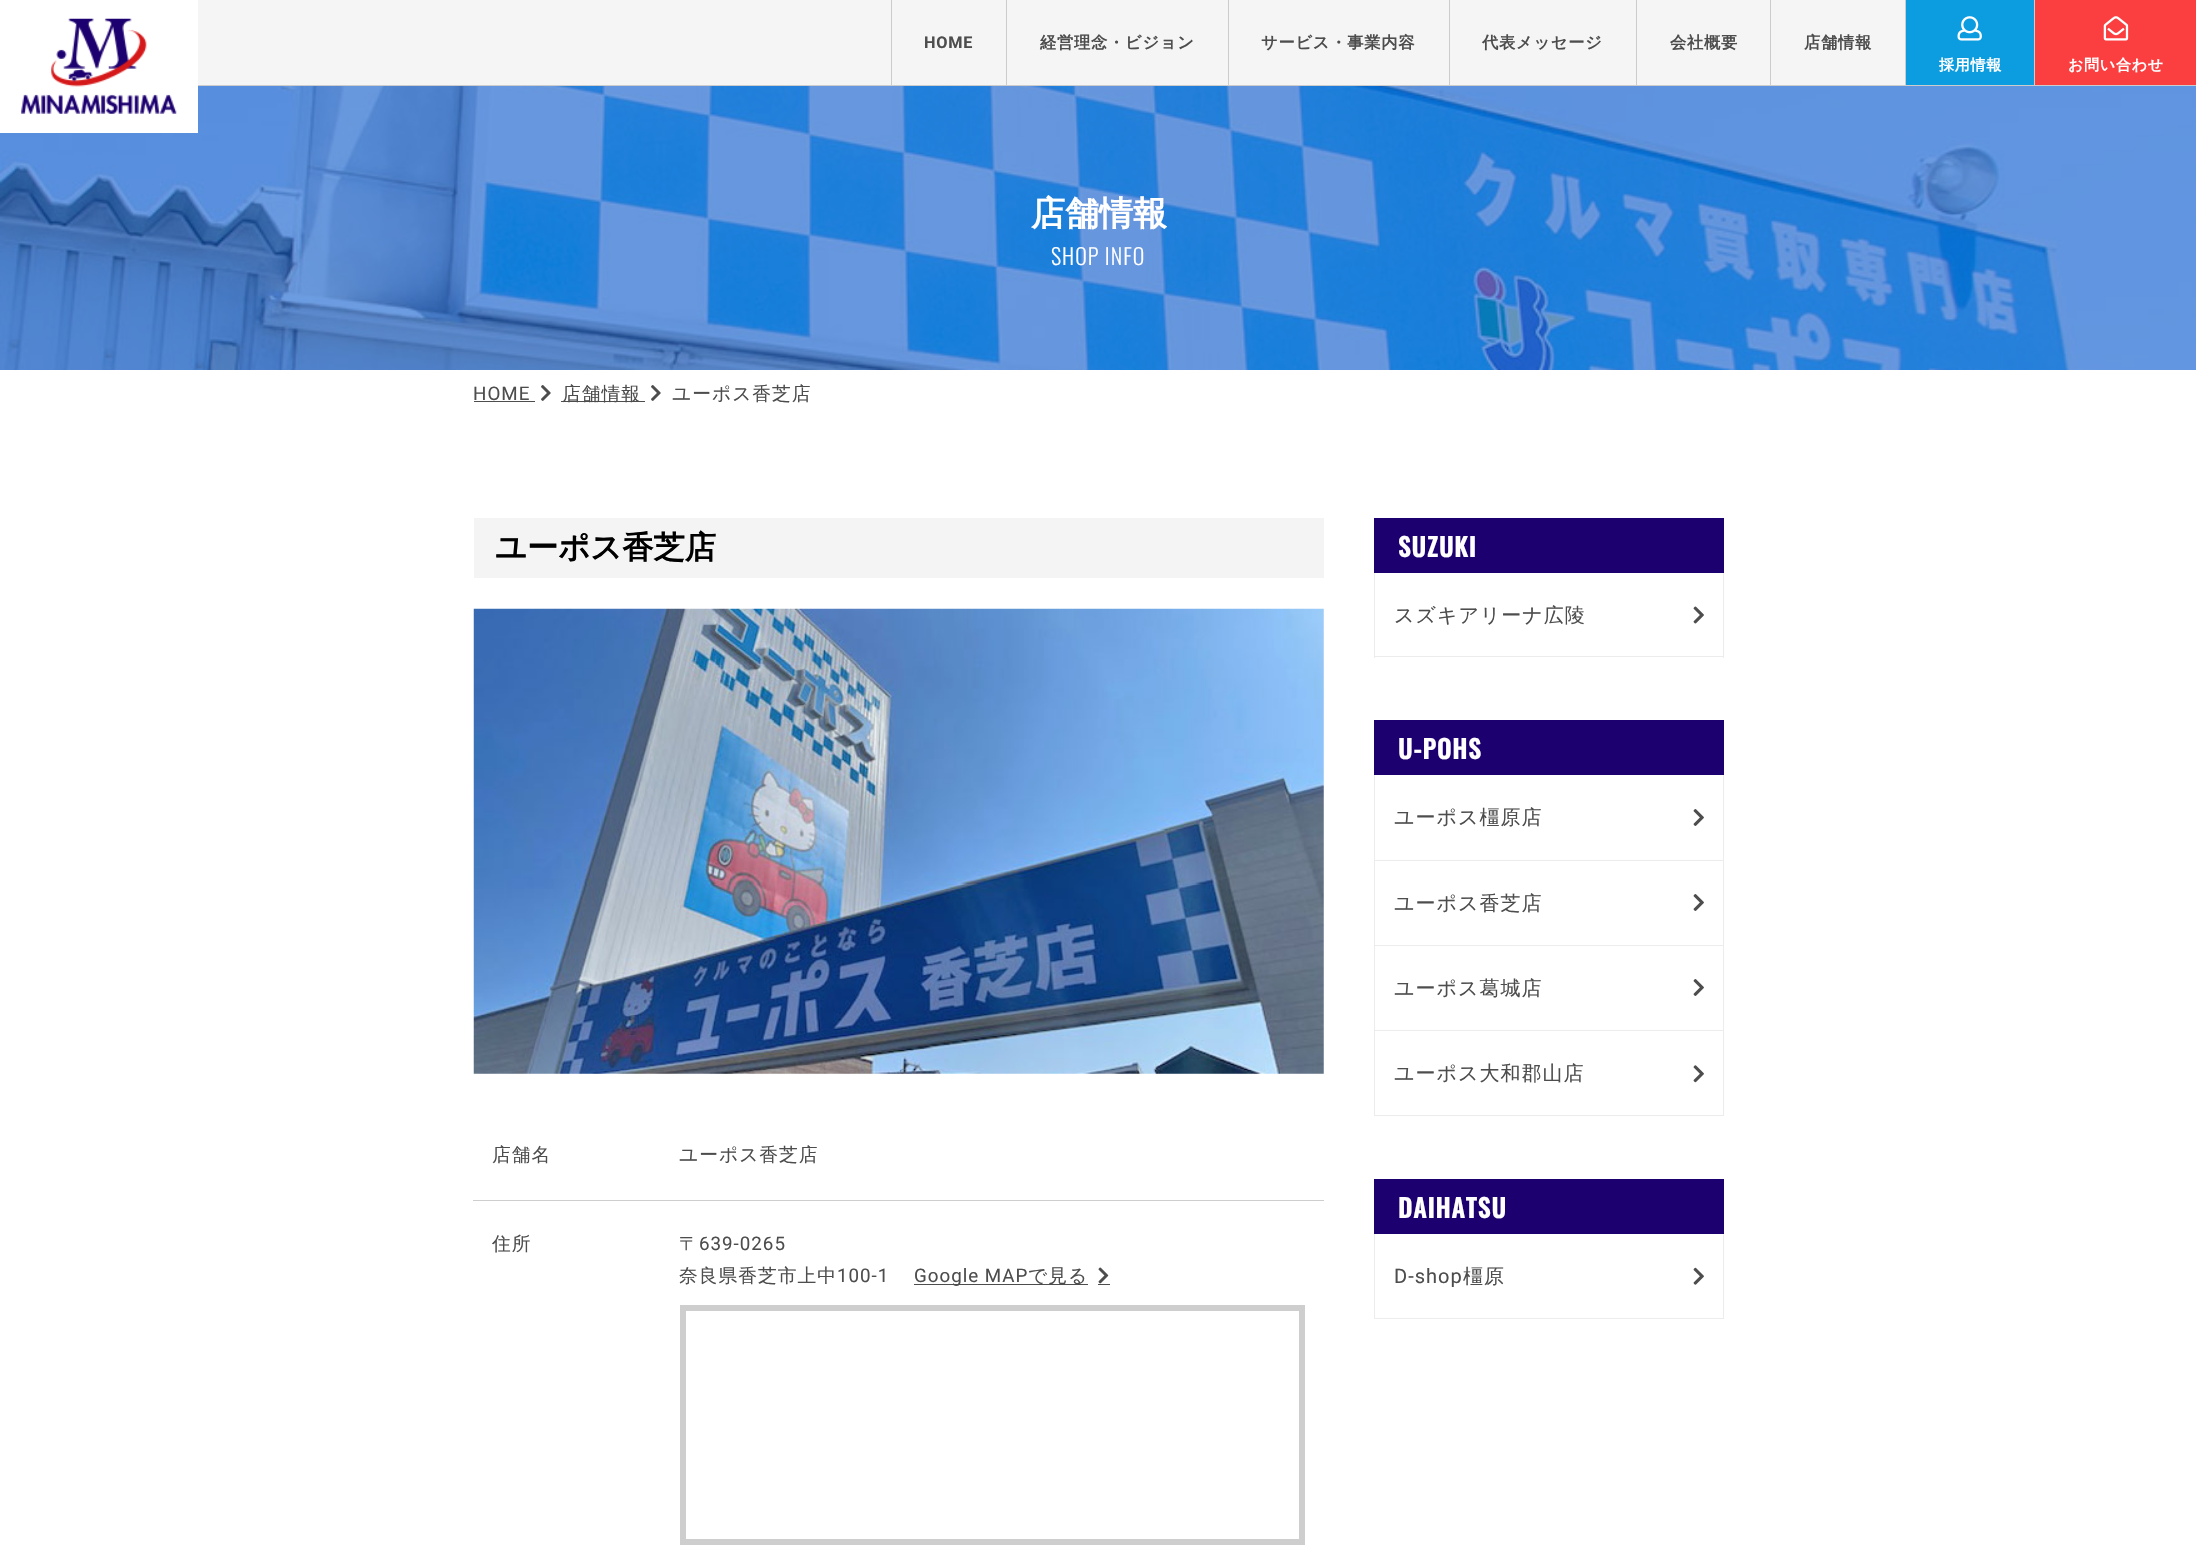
#include "include/core/SkBlurTypes.h"
#include "include/core/SkCanvas.h"
#include "include/core/SkData.h"
#include "include/core/SkFont.h"
#include "include/core/SkFontMgr.h"
#include "include/core/SkImage.h"
#include "include/core/SkMaskFilter.h"
#include "include/core/SkPaint.h"
#include "include/core/SkPathBuilder.h"
#include "include/core/SkTextBlob.h"
#include "include/effects/SkDashPathEffect.h"
#include "include/effects/SkGradientShader.h"
#include "include/utils/SkParsePath.h"

extern sk_sp<SkFontMgr> fontMgr;

void draw(SkCanvas* canvas) {
    SkPaint p;
    p.setAntiAlias(true);
    auto font = [&](const char* family, int weight, float size, bool italic = false) {
        SkFontStyle style(weight, SkFontStyle::kNormal_Width,
            italic ? SkFontStyle::kItalic_Slant : SkFontStyle::kUpright_Slant);
        SkFont result(fontMgr->matchFamilyStyle(family, style), size);
        result.setSubpixel(true);
        return result;
    };
    auto drawTracked = [&](const char* s, float x, float y, const SkFont& font, const SkPaint& ink, float letter, float word) {
        std::vector<SkGlyphID> glyphs(font.countText(s, strlen(s), SkTextEncoding::kUTF8));
        std::vector<float> xs(glyphs.size());
        font.textToGlyphs(s, strlen(s), SkTextEncoding::kUTF8, glyphs);
        font.getXPos(glyphs, xs, x);
        float extra = 0;
        for (size_t i = 0; i < glyphs.size(); i++) {
            xs[i] += extra;
            extra += letter + word * (glyphs[i] == font.unicharToGlyph(' '));
        }
        canvas->drawTextBlob(SkTextBlob::MakeFromPosHGlyphs(glyphs, xs, y, font), 0, 0, ink);
    };
    auto drawPhoto = [&](const char* path, float l, float t, float r, float b) {
        auto image = SkImages::DeferredFromEncodedData(SkData::MakeFromFileName(path));
        canvas->drawImageRect(image, SkRect::MakeLTRB(l, t, r, b), SkSamplingOptions());
    };
    canvas->clear(0xFFFFFFFF);
    drawPhoto("media/4.png", 0, 86, 2196, 370);
    p.setColor(0xFFFFFFFF);
    canvas->drawRect(SkRect::MakeLTRB(0, 86, 198, 133), p);
    drawPhoto("media/1.png", 21, 18, 177, 114);
    {
        const struct { float l, t, r, b; SkColor color; } items[] = {
            {198, 0, 1905, 85, 0xFFF5F5F5},
            {198, 85, 2196, 86, 0xFFCCCCCC},
            {891, 0, 892, 85, 0xFFCCCCCC},
        };
        for (auto [l, t, r, b, color] : items) {
            p.setColor(color);
            canvas->drawRect(SkRect::MakeLTRB(l, t, r, b), p);
        }
    }
    auto font1 = font("Roboto", 700, 16.25f);
    p.setColor(0xFF4D4D4D);
    drawTracked("HOME", 924, 48, font1, p, 0.75f, 0);
    p.setColor(0xFFCCCCCC);
    canvas->drawRect(SkRect::MakeLTRB(1006, 0, 1007, 85), p);
    auto font2 = font("WenQuanYi Zen Hei", 700, 16.25f);
    p.setColor(0xFF4D4D4D);
    drawTracked("経営理念・ビジョン", 1040, 48, font2, p, 0.75f, 0);
    p.setColor(0xFFCCCCCC);
    canvas->drawRect(SkRect::MakeLTRB(1228, 0, 1229, 85), p);
    p.setColor(0xFF4D4D4D);
    drawTracked("サービス・事業内容", 1261, 48, font2, p, 0.75f, 0);
    p.setColor(0xFFCCCCCC);
    canvas->drawRect(SkRect::MakeLTRB(1449, 0, 1450, 85), p);
    p.setColor(0xFF4D4D4D);
    drawTracked("代表メッセージ", 1482, 48, font2, p, 0.75f, 0);
    p.setColor(0xFFCCCCCC);
    canvas->drawRect(SkRect::MakeLTRB(1636, 0, 1637, 85), p);
    p.setColor(0xFF4D4D4D);
    drawTracked("会社概要", 1670, 48, font2, p, 0.75f, 0);
    p.setColor(0xFFCCCCCC);
    canvas->drawRect(SkRect::MakeLTRB(1770, 0, 1771, 85), p);
    p.setColor(0xFF4D4D4D);
    drawTracked("店舗情報", 1804, 48, font2, p, 0.75f, 0);
    p.setColor(0xFF0C9DE0);
    canvas->drawRect(SkRect::MakeLTRB(1906, 0, 2034, 85), p);
    p.setColor(0xFFCCCCCC);
    canvas->drawRect(SkRect::MakeLTRB(1905, 0, 1906, 85), p);
    drawPhoto("media/2.png", 1957, 16, 1982, 41);
    auto font3 = font("WenQuanYi Zen Hei", 700, 15);
    p.setColor(0xFFFFFFFF);
    drawTracked("採用情報", 1939, 70, font3, p, 0.75f, 0);
    p.setColor(0xFFFB3E3F);
    canvas->drawRect(SkRect::MakeLTRB(2035, 0, 2196, 85), p);
    p.setColor(0xFFCCCCCC);
    canvas->drawRect(SkRect::MakeLTRB(2034, 0, 2035, 85), p);
    drawPhoto("media/3.png", 2103, 16, 2129, 41);
    p.setColor(0xFFFFFFFF);
    drawTracked("お問い合わせ", 2068, 70, font3, p, 0.75f, 0);
    auto font4 = font("WenQuanYi Zen Hei", 700, 34);
    canvas->drawString("店舗情報", 1031, 225, font4, p);
    auto font5 = font("Oswald", 300, 22);
    drawTracked("SHOP INFO", 1051, 265, font5, p, 1, 0);
    auto font6 = font("Roboto", 400, 18.75f);
    p.setColor(0xFF4D4D4D);
    drawTracked("HOME", 473, 400, font6, p, 1, 0);
    canvas->drawRect(SkRect::MakeLTRB(474, 401, 535, 402), p);
    drawPhoto("media/5.png", 541, 385, 551, 401);
    canvas->drawRect(SkRect::MakeLTRB(561, 401, 645, 402), p);
    auto font7 = font("WenQuanYi Zen Hei", 500, 18.75f);
    drawTracked("店舗情報", 562, 400, font7, p, 1, 0);
    drawPhoto("media/5.png", 651, 385, 661, 401);
    drawTracked("ユーポス香芝店", 672, 400, font7, p, 1, 0);
    p.setColor(0xFFF4F4F4);
    canvas->drawRect(SkRect::MakeLTRB(474, 518, 1324, 578), p);
    auto font8 = font("WenQuanYi Zen Hei", 700, 31.25f);
    p.setColor(0xFF000000);
    canvas->drawString("ユーポス香芝店", 495, 558, font8, p);
    drawPhoto("media/6.png", 473, 608, 1324, 1074);
    p.setColor(0xFF4D4D4D);
    drawTracked("店舗名", 492, 1161, font7, p, 1, 0);
    p.setColor(0xFFCECECE);
    canvas->drawRect(SkRect::MakeLTRB(473, 1200, 1324, 1201), p);
    p.setColor(0xFF4D4D4D);
    {
        const struct { const char* s; float x, y; } items[] = {
            {"ユーポス香芝店", 679, 1161},
            {"住所", 492, 1250},
            {"〒", 679, 1250},
        };
        for (auto [s, x, y] : items) {
            drawTracked(s, x, y, font7, p, 1, 0);
        }
    }
    drawTracked("639-0265", 699, 1250, font6, p, 1, 0);
    drawTracked("奈良県香芝市上中", 679, 1282, font7, p, 1, 0);
    drawTracked("100-1", 837, 1282, font6, p, 1, 0);
    canvas->drawRect(SkRect::MakeLTRB(914, 1284, 1088, 1285), p);
    drawTracked("Google MAP", 914, 1282, font6, p, 1, 0);
    drawTracked("で見る", 1028, 1282, font7, p, 1, 0);
    canvas->drawRect(SkRect::MakeLTRB(1098, 1284, 1110, 1285), p);
    drawPhoto("media/7.png", 1098, 1267, 1109, 1284);
    p.setStyle(SkPaint::kStroke_Style);
    p.setStrokeWidth(6);
    p.setColor(0xFFCECECE);
    canvas->drawRect(SkRect::MakeLTRB(683, 1308, 1302, 1542), p);
    p.setStyle(SkPaint::kFill_Style);
    p.setColor(0xFF1D006F);
    canvas->drawRect(SkRect::MakeLTRB(1374, 518, 1724, 573), p);
    auto font9 = font("Oswald", 700, 25);
    p.setColor(0xFFFFFFFF);
    drawTracked("SUZUKI", 1398, 557, font9, p, 1.25f, 0);
    {
        const struct { float l, t, r, b; SkColor color; } items[] = {
            {1723, 573, 1724, 658, 0xFFECECEC},
            {1374, 573, 1375, 658, 0xFFECECEC},
            {1375, 656, 1723, 657, 0xFFECECEC},
        };
        for (auto [l, t, r, b, color] : items) {
            p.setColor(color);
            canvas->drawRect(SkRect::MakeLTRB(l, t, r, b), p);
        }
    }
    auto font10 = font("WenQuanYi Zen Hei", 500, 20);
    p.setColor(0xFF4D4D4D);
    drawTracked("スズキアリーナ広陵", 1394, 622, font10, p, 1, 0);
    drawPhoto("media/8.png", 1693, 606, 1704, 624);
    p.setColor(0xFF1D006F);
    canvas->drawRect(SkRect::MakeLTRB(1374, 720, 1724, 775), p);
    p.setColor(0xFFFFFFFF);
    drawTracked("U-POHS", 1398, 759, font9, p, 1.25f, 0);
    {
        const struct { float l, t, r, b; SkColor color; } items[] = {
            {1723, 775, 1724, 1116, 0xFFECECEC},
            {1374, 775, 1375, 1116, 0xFFECECEC},
            {1375, 860, 1723, 861, 0xFFECECEC},
        };
        for (auto [l, t, r, b, color] : items) {
            p.setColor(color);
            canvas->drawRect(SkRect::MakeLTRB(l, t, r, b), p);
        }
    }
    p.setColor(0xFF4D4D4D);
    drawTracked("ユーポス橿原店", 1394, 824, font10, p, 1, 0);
    drawPhoto("media/9.png", 1693, 809, 1704, 826);
    p.setColor(0xFFECECEC);
    canvas->drawRect(SkRect::MakeLTRB(1375, 945, 1723, 946), p);
    p.setColor(0xFF4D4D4D);
    drawTracked("ユーポス香芝店", 1394, 910, font10, p, 1, 0);
    drawPhoto("media/9.png", 1693, 894, 1704, 911);
    p.setColor(0xFFECECEC);
    canvas->drawRect(SkRect::MakeLTRB(1375, 1030, 1723, 1031), p);
    p.setColor(0xFF4D4D4D);
    drawTracked("ユーポス葛城店", 1394, 995, font10, p, 1, 0);
    drawPhoto("media/9.png", 1693, 979, 1704, 996);
    p.setColor(0xFFECECEC);
    canvas->drawRect(SkRect::MakeLTRB(1375, 1115, 1723, 1116), p);
    p.setColor(0xFF4D4D4D);
    drawTracked("ユーポス大和郡山店", 1394, 1080, font10, p, 1, 0);
    drawPhoto("media/10.png", 1693, 1065, 1704, 1083);
    p.setColor(0xFF1D006F);
    canvas->drawRect(SkRect::MakeLTRB(1374, 1179, 1724, 1234), p);
    p.setColor(0xFFFFFFFF);
    drawTracked("DAIHATSU", 1398, 1218, font9, p, 1.25f, 0);
    {
        const struct { float l, t, r, b; SkColor color; } items[] = {
            {1723, 1234, 1724, 1319, 0xFFECECEC},
            {1374, 1234, 1375, 1319, 0xFFECECEC},
            {1375, 1318, 1723, 1319, 0xFFECECEC},
        };
        for (auto [l, t, r, b, color] : items) {
            p.setColor(color);
            canvas->drawRect(SkRect::MakeLTRB(l, t, r, b), p);
        }
    }
    auto font11 = font("Roboto", 400, 20);
    p.setColor(0xFF4D4D4D);
    drawTracked("D-shop", 1394, 1283, font11, p, 1, 0);
    drawTracked("橿原", 1463, 1283, font10, p, 1, 0);
    drawPhoto("media/11.png", 1693, 1267, 1704, 1285);
}
